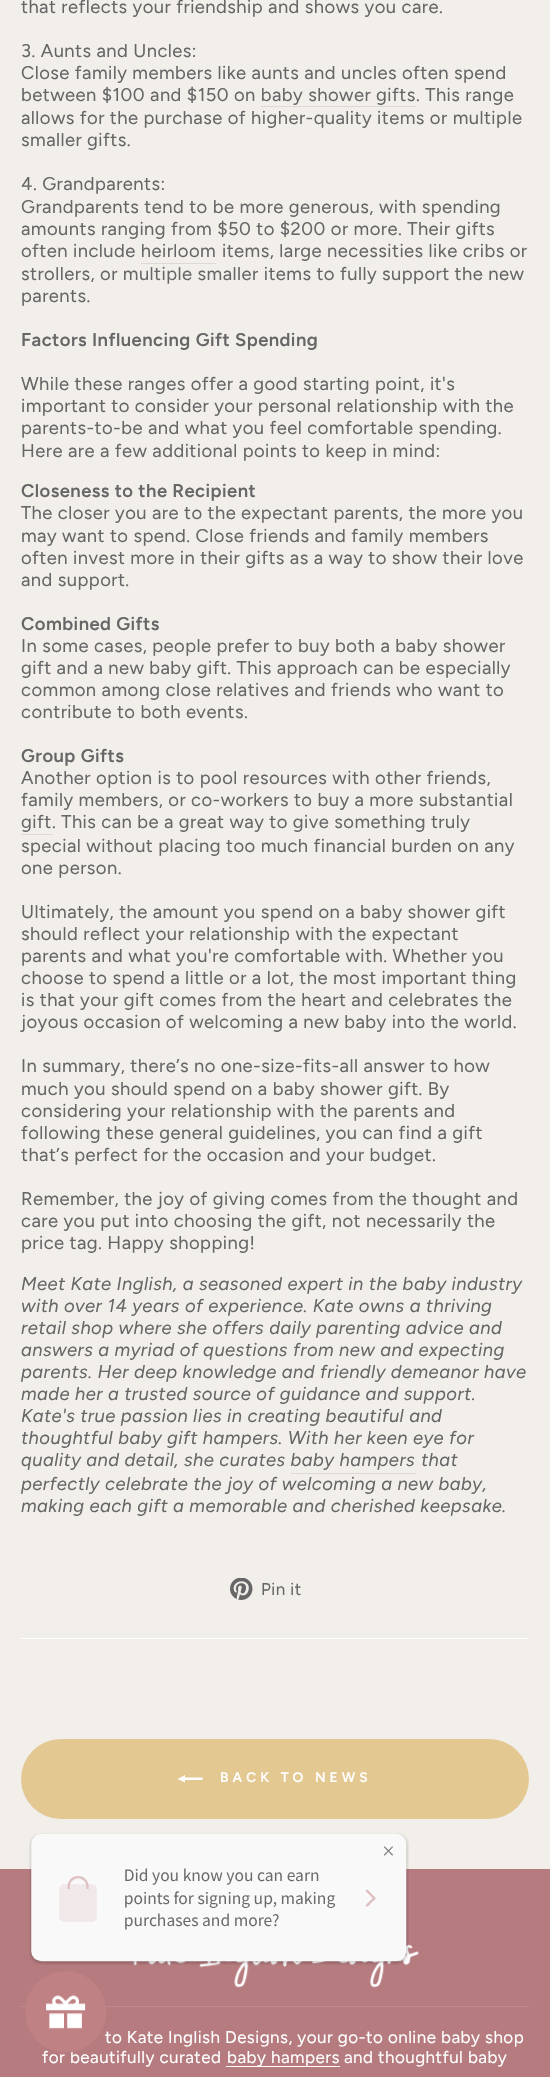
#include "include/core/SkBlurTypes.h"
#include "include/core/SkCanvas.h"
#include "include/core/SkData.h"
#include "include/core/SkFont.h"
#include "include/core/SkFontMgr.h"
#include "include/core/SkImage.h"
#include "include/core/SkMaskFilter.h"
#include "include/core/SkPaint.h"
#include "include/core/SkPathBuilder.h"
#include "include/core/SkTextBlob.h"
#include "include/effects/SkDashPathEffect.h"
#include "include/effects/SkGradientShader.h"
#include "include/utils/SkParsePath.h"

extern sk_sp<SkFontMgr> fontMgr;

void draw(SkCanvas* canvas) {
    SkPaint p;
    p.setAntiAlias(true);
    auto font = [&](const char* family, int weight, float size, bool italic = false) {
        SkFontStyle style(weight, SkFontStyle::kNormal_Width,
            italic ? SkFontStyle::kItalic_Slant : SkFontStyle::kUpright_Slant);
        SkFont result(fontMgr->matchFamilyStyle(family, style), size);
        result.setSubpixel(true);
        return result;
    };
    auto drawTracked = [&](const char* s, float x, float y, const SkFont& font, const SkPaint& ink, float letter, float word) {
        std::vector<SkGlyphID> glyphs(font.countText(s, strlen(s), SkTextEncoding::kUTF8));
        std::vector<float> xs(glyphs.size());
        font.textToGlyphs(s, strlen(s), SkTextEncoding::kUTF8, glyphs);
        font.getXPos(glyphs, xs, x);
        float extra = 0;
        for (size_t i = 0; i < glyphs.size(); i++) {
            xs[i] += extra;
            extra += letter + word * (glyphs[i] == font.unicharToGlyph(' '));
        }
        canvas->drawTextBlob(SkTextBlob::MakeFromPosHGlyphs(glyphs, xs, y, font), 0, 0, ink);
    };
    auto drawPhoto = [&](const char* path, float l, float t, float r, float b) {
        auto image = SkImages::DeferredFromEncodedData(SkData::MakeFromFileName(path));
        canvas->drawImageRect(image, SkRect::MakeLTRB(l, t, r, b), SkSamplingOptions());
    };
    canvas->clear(0xFFF2EFEA);
    auto font1 = font("Figtree", 400, 18.4f);
    p.setColor(0xFF676667);
    {
        const struct { const char* s; float x, y; } items[] = {
            {"that reflects your friendship and shows you care.", 21, 13},
            {"3. Aunts and Uncles:", 21, 57},
            {"Close family members like aunts and uncles often spend", 21, 79},
            {"between $100 and $150 on baby shower gifts", 21, 101},
            {". This range", 416, 101},
        };
        for (auto [s, x, y] : items) {
            drawTracked(s, x, y, font1, p, 0.45f, 0);
        }
    }
    p.setColor(0xFFDDDAD6);
    canvas->drawRect(SkRect::MakeLTRB(261, 106, 416, 107), p);
    p.setColor(0xFF676667);
    {
        const struct { const char* s; float x, y; } items[] = {
            {"allows for the purchase of higher-quality items or multiple", 21, 124},
            {"smaller gifts.", 21, 146},
            {"4. Grandparents:", 21, 190},
            {"Grandparents tend to be more generous, with spending", 21, 213},
            {"amounts ranging from $50 to $200 or more. Their gifts", 21, 235},
            {"often include heirloom", 21, 257},
            {"items, large necessities like cribs or", 222, 257},
        };
        for (auto [s, x, y] : items) {
            drawTracked(s, x, y, font1, p, 0.45f, 0);
        }
    }
    p.setColor(0xFFDDDAD6);
    canvas->drawRect(SkRect::MakeLTRB(141, 263, 216, 264), p);
    p.setColor(0xFF676667);
    drawTracked("strollers, or multiple smaller items to fully support the new", 21, 280, font1, p, 0.45f, 0);
    drawTracked("parents.", 21, 302, font1, p, 0.45f, 0);
    auto font2 = font("Figtree", 600, 18.4f);
    drawTracked("Factors Influencing Gift Spending", 21, 346, font2, p, 0.45f, 0);
    {
        const struct { const char* s; float x, y; } items[] = {
            {"While these ranges offer a good starting point, it's", 21, 390},
            {"important to consider your personal relationship with the", 21, 412},
            {"parents-to-be and what you feel comfortable spending.", 21, 434},
            {"Here are a few additional points to keep in mind:", 21, 457},
        };
        for (auto [s, x, y] : items) {
            drawTracked(s, x, y, font1, p, 0.45f, 0);
        }
    }
    drawTracked("Closeness to the Recipient", 21, 497, font2, p, 0.45f, 0);
    {
        const struct { const char* s; float x, y; } items[] = {
            {"The closer you are to the expectant parents, the more you", 21, 519},
            {"may want to spend. Close friends and family members", 21, 542},
            {"often invest more in their gifts as a way to show their love", 21, 564},
            {"and support.", 21, 586},
        };
        for (auto [s, x, y] : items) {
            drawTracked(s, x, y, font1, p, 0.45f, 0);
        }
    }
    drawTracked("Combined Gifts", 21, 630, font2, p, 0.45f, 0);
    {
        const struct { const char* s; float x, y; } items[] = {
            {"In some cases, people prefer to buy both a baby shower", 21, 652},
            {"gift and a new baby gift. This approach can be especially", 21, 674},
            {"common among close relatives and friends who want to", 21, 696},
            {"contribute to both events.", 21, 718},
        };
        for (auto [s, x, y] : items) {
            drawTracked(s, x, y, font1, p, 0.45f, 0);
        }
    }
    drawTracked("Group Gifts", 21, 762, font2, p, 0.45f, 0);
    drawTracked("Another option is to pool resources with other friends,", 21, 784, font1, p, 0.45f, 0);
    drawTracked("family members, or co-workers to buy a more substantial", 21, 806, font1, p, 0.45f, 0);
    p.setColor(0xFFDDDAD6);
    canvas->drawRect(SkRect::MakeLTRB(21, 834, 53, 835), p);
    p.setColor(0xFF676667);
    {
        const struct { const char* s; float x, y; } items[] = {
            {"gift", 21, 828},
            {". This can be a great way to give something truly", 52, 828},
            {"special without placing too much financial burden on any", 21, 852},
            {"one person.", 21, 874},
            {"Ultimately, the amount you spend on a baby shower gift", 21, 918},
            {"should reflect your relationship with the expectant", 21, 940},
            {"parents and what you're comfortable with. Whether you", 21, 962},
            {"choose to spend a little or a lot, the most important thing", 21, 984},
            {"is that your gift comes from the heart and celebrates the", 21, 1006},
            {"joyous occasion of welcoming a new baby into the world.", 21, 1028},
            {"In summary, there’s no one-size-fits-all answer to how", 21, 1072},
            {"much you should spend on a baby shower gift. By", 21, 1095},
            {"considering your relationship with the parents and", 21, 1117},
            {"following these general guidelines, you can find a gift", 21, 1139},
            {"that’s perfect for the occasion and your budget.", 21, 1161},
            {"Remember, the joy of giving comes from the thought and", 21, 1205},
            {"care you put into choosing the gift, not necessarily the", 21, 1227},
            {"price tag. Happy shopping!", 21, 1249},
        };
        for (auto [s, x, y] : items) {
            drawTracked(s, x, y, font1, p, 0.45f, 0);
        }
    }
    auto font3 = font("Figtree", 400, 18.4f, true);
    {
        const struct { const char* s; float x, y; } items[] = {
            {"Meet Kate Inglish, a seasoned expert in the baby industry", 21, 1290},
            {"with over 14 years of experience. Kate owns a thriving", 21, 1312},
            {"retail shop where she offers daily parenting advice and", 21, 1334},
            {"answers a myriad of questions from new and expecting", 21, 1356},
            {"parents. Her deep knowledge and friendly demeanor have", 21, 1378},
            {"made her a trusted source of guidance and support.", 21, 1400},
            {"Kate's true passion lies in creating beautiful and", 21, 1422},
            {"thoughtful baby gift hampers. With her keen eye for", 21, 1444},
            {"quality and detail, she curates baby hampers", 21, 1466},
            {"that", 421, 1466},
        };
        for (auto [s, x, y] : items) {
            drawTracked(s, x, y, font3, p, 0.45f, 0);
        }
    }
    p.setColor(0xFFDDDAD6);
    canvas->drawRect(SkRect::MakeLTRB(291, 1473, 416, 1474), p);
    p.setColor(0xFF676667);
    drawTracked("perfectly celebrate the joy of welcoming a new baby,", 21, 1490, font3, p, 0.45f, 0);
    drawTracked("making each gift a memorable and cherished keepsake.", 21, 1512, font3, p, 0.45f, 0);
    drawPhoto("media/1.png", 230, 1578, 253, 1600);
    auto font4 = font("Figtree", 400, 17);
    drawTracked("Pin it", 261, 1595, font4, p, 0.45f, 0);
    p.setColor(0xFFFFFFFF);
    canvas->drawRect(SkRect::MakeLTRB(21, 1638, 529, 1639), p);
    p.setColor(0xFFE3C892);
    canvas->drawRoundRect(SkRect::MakeLTRB(21, 1739, 529, 1819), 40, 40, p);
    p.setColor(0xFFFFFFFF);
    canvas->drawPath(SkPathBuilder().moveTo(202.5f, 1777.5f).lineTo(202.5f, 1780).lineTo(185, 1780).lineTo(185, 1782.5f).lineTo(177.5f, 1779).lineTo(185, 1775).lineTo(185, 1777.5f).close().detach(), p);
    auto font5 = font("Figtree", 600, 13.75f);
    drawTracked("BACK TO NEWS", 220, 1782, font5, p, 4.1f, 0);
    p.setColor(0xFFB57B7F);
    canvas->drawRect(SkRect::MakeLTRB(0, 1869, 550, 2077), p);
    drawPhoto("media/2.png", 133, 1944, 419, 1988);
    p.setColor(0xFFBE8B8E);
    canvas->drawRect(SkRect::MakeLTRB(21, 2006, 529, 2007), p);
    p.setColor(0xFFFFFFFF);
    drawTracked("to Kate Inglish Designs, your go-to online baby shop", 105, 2043, font4, p, 0.45f, 0);
    drawTracked("for beautifully curated", 42, 2063, font4, p, 0.45f, 0);
    canvas->drawRect(SkRect::MakeLTRB(226, 2066, 340, 2067), p);
    drawTracked("baby hampers", 227, 2063, font4, p, 0.45f, 0);
    drawTracked("and thoughtful baby", 344, 2063, font4, p, 0.45f, 0);
    drawPhoto("media/3.png", 29, 1833, 409, 1965);
    drawPhoto("media/4.png", 25, 1971, 106, 2053);
}
